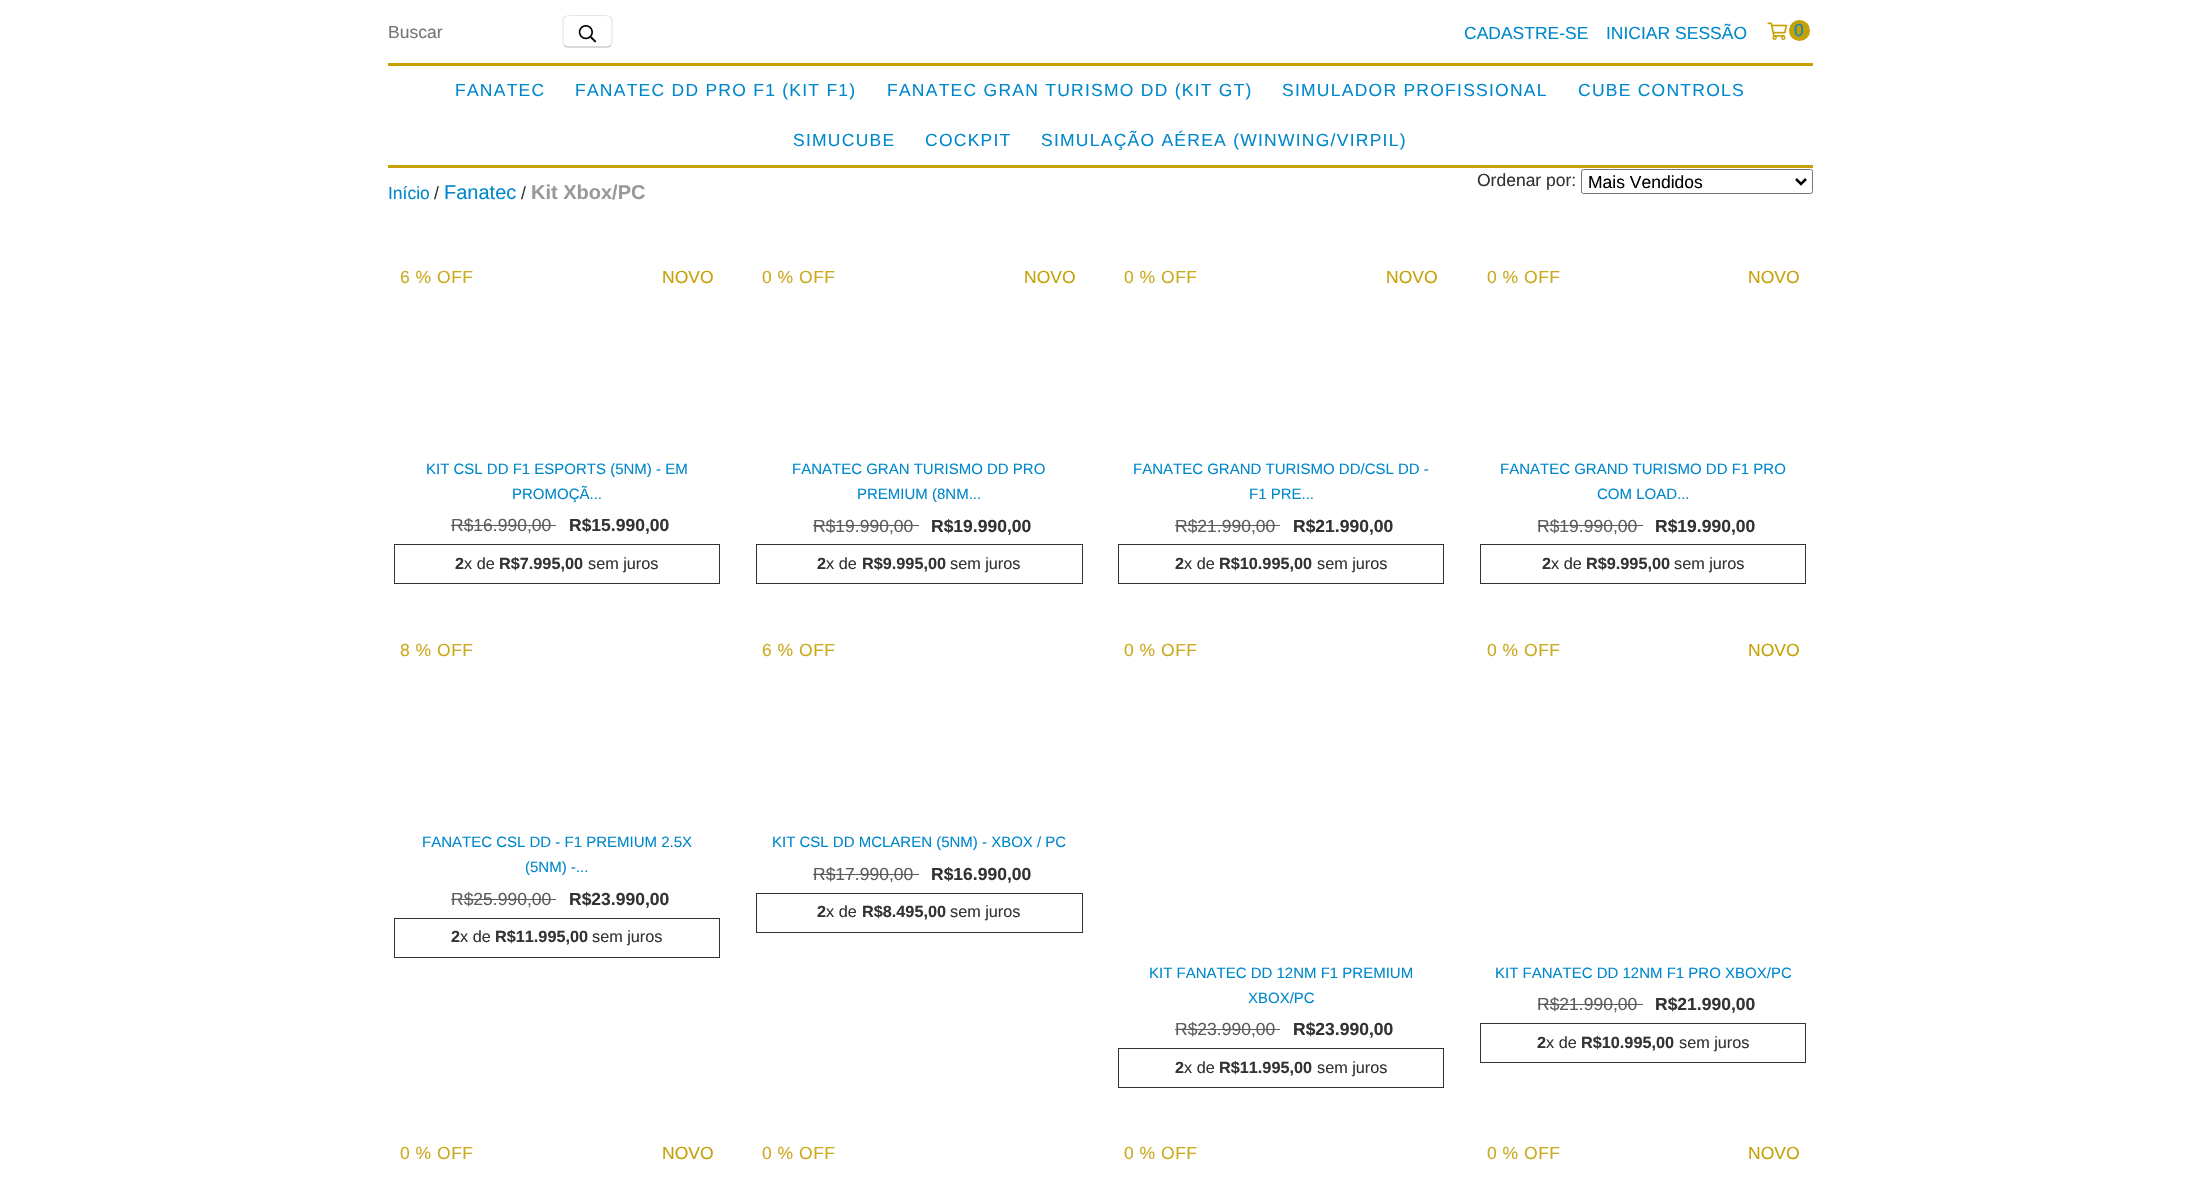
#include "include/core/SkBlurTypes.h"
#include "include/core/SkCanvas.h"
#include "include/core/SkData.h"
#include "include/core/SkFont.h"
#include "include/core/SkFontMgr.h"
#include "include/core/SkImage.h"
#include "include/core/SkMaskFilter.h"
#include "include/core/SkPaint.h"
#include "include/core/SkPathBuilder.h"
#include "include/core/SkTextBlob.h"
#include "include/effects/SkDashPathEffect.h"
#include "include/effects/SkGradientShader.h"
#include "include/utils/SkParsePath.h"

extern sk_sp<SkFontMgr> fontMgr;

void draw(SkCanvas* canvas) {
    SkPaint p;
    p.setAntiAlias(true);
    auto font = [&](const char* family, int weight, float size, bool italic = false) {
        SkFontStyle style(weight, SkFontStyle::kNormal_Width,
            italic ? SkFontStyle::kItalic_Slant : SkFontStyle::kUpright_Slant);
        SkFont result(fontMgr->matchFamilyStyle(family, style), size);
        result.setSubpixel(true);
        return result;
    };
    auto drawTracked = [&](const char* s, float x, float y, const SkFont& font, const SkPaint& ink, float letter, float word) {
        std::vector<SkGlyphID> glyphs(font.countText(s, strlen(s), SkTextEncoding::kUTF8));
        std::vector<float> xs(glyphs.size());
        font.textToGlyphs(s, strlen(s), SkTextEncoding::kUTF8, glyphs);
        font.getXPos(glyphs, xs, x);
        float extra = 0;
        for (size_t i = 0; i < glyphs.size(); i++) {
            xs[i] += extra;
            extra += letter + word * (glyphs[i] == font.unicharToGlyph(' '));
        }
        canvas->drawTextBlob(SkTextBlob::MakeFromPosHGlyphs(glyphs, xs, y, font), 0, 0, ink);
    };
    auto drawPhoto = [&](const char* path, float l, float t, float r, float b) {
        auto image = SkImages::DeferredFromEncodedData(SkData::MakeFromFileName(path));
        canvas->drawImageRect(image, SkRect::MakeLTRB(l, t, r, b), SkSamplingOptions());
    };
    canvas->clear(0xFFFFFFFF);
    auto font1 = font("Liberation Sans", 400, 17.5f);
    p.setColor(0xFF757575);
    canvas->drawString("Buscar", 388, 38, font1, p);
    p.setStyle(SkPaint::kStroke_Style);
    p.setStrokeWidth(1.2f);
    p.setColor(0xFFB3B3B3);
    canvas->drawPath(SkPathBuilder().moveTo(610.5f, 45.5f).cubicTo(610, 46.5f, 608.5f, 47, 607.5f, 47).lineTo(567.5f, 47).cubicTo(566.5f, 47, 565, 46.5f, 564.5f, 45.5f).detach(), p);
    p.setColor(0x1A000000);
    canvas->drawPath(SkPathBuilder().moveTo(564.5f, 45.5f).cubicTo(562, 43, 563, 34.5f, 563, 31).cubicTo(563, 17, 560.5f, 15.5f, 574, 15.5f).lineTo(601, 15.5f).cubicTo(614.5f, 15.5f, 612, 17, 612, 31).cubicTo(612, 34.5f, 613, 43, 610.5f, 45.5f).detach(), p);
    drawPhoto("media/1.png", 578, 25, 597, 43);
    p.setStyle(SkPaint::kFill_Style);
    p.setColor(0xFF0088CC);
    canvas->drawString("CADASTRE-SE", 1464, 39, font1, p);
    canvas->drawString("INICIAR SESSÃO", 1606, 39, font1, p);
    drawPhoto("media/2.png", 1767, 22, 1788, 40);
    p.setColor(0xFFC5A106);
    canvas->drawCircle(1799.5f, 30.5f, 10.5f, p);
    p.setColor(0xFF0088CC);
    drawTracked("0", 1794, 36, font1, p, 1.25f, 0);
    p.setColor(0xFFC5A106);
    canvas->drawRect(SkRect::MakeLTRB(388, 63, 1813, 66), p);
    canvas->drawRect(SkRect::MakeLTRB(388, 165, 1813, 168), p);
    p.setColor(0xFF0088CC);
    {
        const struct { const char* s; float x, y; } items[] = {
            {"FANATEC", 455, 96},
            {"FANATEC DD PRO F1 (KIT F1)", 575, 96},
            {"FANATEC GRAN TURISMO DD (KIT GT)", 887, 96},
            {"SIMULADOR PROFISSIONAL", 1282, 96},
            {"CUBE CONTROLS", 1578, 96},
            {"SIMUCUBE", 793, 146},
            {"COCKPIT", 925, 146},
            {"SIMULAÇÃO AÉREA (WINWING/VIRPIL)", 1041, 146},
        };
        for (auto [s, x, y] : items) {
            drawTracked(s, x, y, font1, p, 1.25f, 0);
        }
    }
    p.setColor(0xFF333333);
    canvas->drawString("Ordenar por:", 1477, 186, font1, p);
    p.setStyle(SkPaint::kStroke_Style);
    p.setStrokeWidth(1);
    p.setColor(0xFF767676);
    canvas->drawRoundRect(SkRect::MakeLTRB(1581.5f, 169.5f, 1812.5f, 193.5f), 2, 2, p);
    p.setStrokeWidth(2.5f);
    p.setColor(0xFF000000);
    canvas->drawPath(SkPathBuilder().moveTo(1796, 179).lineTo(1801, 184).lineTo(1806, 179).detach(), p);
    p.setStyle(SkPaint::kFill_Style);
    canvas->drawString("Mais Vendidos", 1588, 188, font1, p);
    p.setColor(0xFF0088CC);
    canvas->drawString("Início", 388, 199, font1, p);
    p.setColor(0xFF333333);
    canvas->drawString("/", 434, 199, font1, p);
    auto font2 = font("Liberation Sans", 400, 20);
    p.setColor(0xFF0088CC);
    canvas->drawString("Fanatec", 444, 199, font2, p);
    p.setColor(0xFF333333);
    canvas->drawString("/", 521, 199, font1, p);
    auto font3 = font("Liberation Sans", 700, 20);
    p.setColor(0xFF999999);
    canvas->drawString("Kit Xbox/PC", 531, 199, font3, p);
    p.setColor(0xFFCBAA1F);
    drawTracked("6 % OFF", 400, 283, font1, p, 0.5f, 0);
    p.setColor(0xFFC5A106);
    canvas->drawString("NOVO", 662, 283, font1, p);
    auto font4 = font("Liberation Sans", 400, 15);
    p.setColor(0xFF0088CC);
    canvas->drawString("KIT CSL DD F1 ESPORTS (5NM) - EM", 426, 474, font4, p);
    canvas->drawString("PROMOÇÃ...", 512, 499, font4, p);
    p.setColor(0xFF5C5C5C);
    canvas->drawString("R$16.990,00", 451, 531, font1, p);
    canvas->drawRect(SkRect::MakeLTRB(451, 525, 556, 526), p);
    auto font5 = font("Liberation Sans", 700, 17.5f);
    p.setColor(0xFF333333);
    canvas->drawString("R$15.990,00", 569, 531, font5, p);
    p.setStyle(SkPaint::kStroke_Style);
    p.setStrokeWidth(1);
    canvas->drawRect(SkRect::MakeLTRB(394.5f, 544.5f, 719.5f, 583.5f), p);
    auto font6 = font("Liberation Sans", 700, 16.25f);
    p.setStyle(SkPaint::kFill_Style);
    canvas->drawString("2", 455, 569, font6, p);
    auto font7 = font("Liberation Sans", 400, 16.25f);
    canvas->drawString("x de", 464, 569, font7, p);
    canvas->drawString("R$7.995,00", 499, 569, font6, p);
    canvas->drawString("sem juros", 588, 569, font7, p);
    p.setColor(0xFFCBAA1F);
    drawTracked("0 % OFF", 762, 283, font1, p, 0.5f, 0);
    p.setColor(0xFFC5A106);
    canvas->drawString("NOVO", 1024, 283, font1, p);
    p.setColor(0xFF0088CC);
    canvas->drawString("FANATEC GRAN TURISMO DD PRO", 792, 474, font4, p);
    canvas->drawString("PREMIUM (8NM...", 857, 499, font4, p);
    p.setColor(0xFF5C5C5C);
    canvas->drawString("R$19.990,00", 813, 532, font1, p);
    canvas->drawRect(SkRect::MakeLTRB(813, 525, 919, 526), p);
    p.setColor(0xFF333333);
    canvas->drawString("R$19.990,00", 931, 532, font5, p);
    p.setStyle(SkPaint::kStroke_Style);
    canvas->drawRect(SkRect::MakeLTRB(756.5f, 544.5f, 1082.5f, 583.5f), p);
    p.setStyle(SkPaint::kFill_Style);
    canvas->drawString("2", 817, 569, font6, p);
    canvas->drawString("x de", 826, 569, font7, p);
    canvas->drawString("R$9.995,00", 862, 569, font6, p);
    canvas->drawString("sem juros", 950, 569, font7, p);
    p.setColor(0xFFCBAA1F);
    drawTracked("0 % OFF", 1124, 283, font1, p, 0.5f, 0);
    p.setColor(0xFFC5A106);
    canvas->drawString("NOVO", 1386, 283, font1, p);
    p.setColor(0xFF0088CC);
    canvas->drawString("FANATEC GRAND TURISMO DD/CSL DD -", 1133, 474, font4, p);
    canvas->drawString("F1 PRE...", 1249, 499, font4, p);
    p.setColor(0xFF5C5C5C);
    canvas->drawString("R$21.990,00", 1175, 532, font1, p);
    canvas->drawRect(SkRect::MakeLTRB(1175, 525, 1280, 526), p);
    p.setColor(0xFF333333);
    canvas->drawString("R$21.990,00", 1293, 532, font5, p);
    p.setStyle(SkPaint::kStroke_Style);
    canvas->drawRect(SkRect::MakeLTRB(1118.5f, 544.5f, 1443.5f, 583.5f), p);
    p.setStyle(SkPaint::kFill_Style);
    canvas->drawString("2", 1175, 569, font6, p);
    canvas->drawString("x de", 1184, 569, font7, p);
    canvas->drawString("R$10.995,00", 1219, 569, font6, p);
    canvas->drawString("sem juros", 1317, 569, font7, p);
    p.setColor(0xFFCBAA1F);
    drawTracked("0 % OFF", 1487, 283, font1, p, 0.5f, 0);
    p.setColor(0xFFC5A106);
    canvas->drawString("NOVO", 1748, 283, font1, p);
    p.setColor(0xFF0088CC);
    canvas->drawString("FANATEC GRAND TURISMO DD F1 PRO", 1500, 474, font4, p);
    canvas->drawString("COM LOAD...", 1597, 499, font4, p);
    p.setColor(0xFF5C5C5C);
    canvas->drawString("R$19.990,00", 1537, 532, font1, p);
    canvas->drawRect(SkRect::MakeLTRB(1538, 525, 1643, 526), p);
    p.setColor(0xFF333333);
    canvas->drawString("R$19.990,00", 1655, 532, font5, p);
    p.setStyle(SkPaint::kStroke_Style);
    canvas->drawRect(SkRect::MakeLTRB(1480.5f, 544.5f, 1805.5f, 583.5f), p);
    p.setStyle(SkPaint::kFill_Style);
    canvas->drawString("2", 1542, 569, font6, p);
    canvas->drawString("x de", 1551, 569, font7, p);
    canvas->drawString("R$9.995,00", 1586, 569, font6, p);
    canvas->drawString("sem juros", 1674, 569, font7, p);
    p.setColor(0xFFCBAA1F);
    drawTracked("8 % OFF", 400, 656, font1, p, 0.5f, 0);
    p.setColor(0xFF0088CC);
    canvas->drawString("FANATEC CSL DD - F1 PREMIUM 2.5X", 422, 847, font4, p);
    canvas->drawString("(5NM) -...", 525, 872, font4, p);
    p.setColor(0xFF5C5C5C);
    canvas->drawString("R$25.990,00", 451, 905, font1, p);
    canvas->drawRect(SkRect::MakeLTRB(451, 899, 556, 900), p);
    p.setColor(0xFF333333);
    canvas->drawString("R$23.990,00", 569, 905, font5, p);
    p.setStyle(SkPaint::kStroke_Style);
    canvas->drawRect(SkRect::MakeLTRB(394.5f, 918.5f, 719.5f, 957.5f), p);
    p.setStyle(SkPaint::kFill_Style);
    canvas->drawString("2", 451, 942, font6, p);
    canvas->drawString("x de", 460, 942, font7, p);
    canvas->drawString("R$11.995,00", 495, 942, font6, p);
    canvas->drawString("sem juros", 592, 942, font7, p);
    p.setColor(0xFFCBAA1F);
    drawTracked("6 % OFF", 762, 656, font1, p, 0.5f, 0);
    p.setColor(0xFF0088CC);
    canvas->drawString("KIT CSL DD MCLAREN (5NM) - XBOX / PC", 772, 847, font4, p);
    p.setColor(0xFF5C5C5C);
    canvas->drawString("R$17.990,00", 813, 880, font1, p);
    canvas->drawRect(SkRect::MakeLTRB(813, 874, 919, 875), p);
    p.setColor(0xFF333333);
    canvas->drawString("R$16.990,00", 931, 880, font5, p);
    p.setStyle(SkPaint::kStroke_Style);
    canvas->drawRect(SkRect::MakeLTRB(756.5f, 893.5f, 1082.5f, 932.5f), p);
    p.setStyle(SkPaint::kFill_Style);
    canvas->drawString("2", 817, 917, font6, p);
    canvas->drawString("x de", 826, 917, font7, p);
    canvas->drawString("R$8.495,00", 862, 917, font6, p);
    canvas->drawString("sem juros", 950, 917, font7, p);
    p.setColor(0xFFCBAA1F);
    drawTracked("0 % OFF", 1124, 656, font1, p, 0.5f, 0);
    p.setColor(0xFF0088CC);
    canvas->drawString("KIT FANATEC DD 12NM F1 PREMIUM", 1149, 978, font4, p);
    canvas->drawString("XBOX/PC", 1248, 1003, font4, p);
    p.setColor(0xFF5C5C5C);
    canvas->drawString("R$23.990,00", 1175, 1035, font1, p);
    canvas->drawRect(SkRect::MakeLTRB(1175, 1029, 1280, 1030), p);
    p.setColor(0xFF333333);
    canvas->drawString("R$23.990,00", 1293, 1035, font5, p);
    p.setStyle(SkPaint::kStroke_Style);
    canvas->drawRect(SkRect::MakeLTRB(1118.5f, 1048.5f, 1443.5f, 1087.5f), p);
    p.setStyle(SkPaint::kFill_Style);
    canvas->drawString("2", 1175, 1073, font6, p);
    canvas->drawString("x de", 1184, 1073, font7, p);
    canvas->drawString("R$11.995,00", 1219, 1073, font6, p);
    canvas->drawString("sem juros", 1317, 1073, font7, p);
    p.setColor(0xFFCBAA1F);
    drawTracked("0 % OFF", 1487, 656, font1, p, 0.5f, 0);
    p.setColor(0xFFC5A106);
    canvas->drawString("NOVO", 1748, 656, font1, p);
    p.setColor(0xFF0088CC);
    canvas->drawString("KIT FANATEC DD 12NM F1 PRO XBOX/PC", 1495, 978, font4, p);
    p.setColor(0xFF5C5C5C);
    canvas->drawString("R$21.990,00", 1537, 1010, font1, p);
    canvas->drawRect(SkRect::MakeLTRB(1538, 1004, 1643, 1005), p);
    p.setColor(0xFF333333);
    canvas->drawString("R$21.990,00", 1655, 1010, font5, p);
    p.setStyle(SkPaint::kStroke_Style);
    canvas->drawRect(SkRect::MakeLTRB(1480.5f, 1023.5f, 1805.5f, 1062.5f), p);
    p.setStyle(SkPaint::kFill_Style);
    canvas->drawString("2", 1537, 1048, font6, p);
    canvas->drawString("x de", 1546, 1048, font7, p);
    canvas->drawString("R$10.995,00", 1581, 1048, font6, p);
    canvas->drawString("sem juros", 1679, 1048, font7, p);
    p.setColor(0xFFCBAA1F);
    drawTracked("0 % OFF", 400, 1159, font1, p, 0.5f, 0);
    p.setColor(0xFFC5A106);
    canvas->drawString("NOVO", 662, 1159, font1, p);
    p.setColor(0xFFCBAA1F);
    {
        const struct { const char* s; float x, y; } items[] = {
            {"0 % OFF", 762, 1159},
            {"0 % OFF", 1124, 1159},
            {"0 % OFF", 1487, 1159},
        };
        for (auto [s, x, y] : items) {
            drawTracked(s, x, y, font1, p, 0.5f, 0);
        }
    }
    p.setColor(0xFFC5A106);
    canvas->drawString("NOVO", 1748, 1159, font1, p);
}
